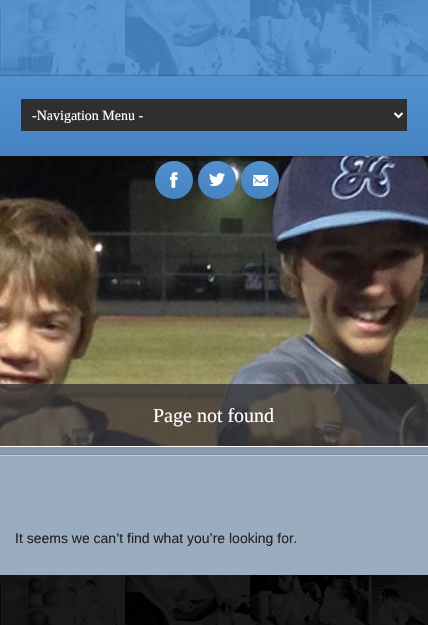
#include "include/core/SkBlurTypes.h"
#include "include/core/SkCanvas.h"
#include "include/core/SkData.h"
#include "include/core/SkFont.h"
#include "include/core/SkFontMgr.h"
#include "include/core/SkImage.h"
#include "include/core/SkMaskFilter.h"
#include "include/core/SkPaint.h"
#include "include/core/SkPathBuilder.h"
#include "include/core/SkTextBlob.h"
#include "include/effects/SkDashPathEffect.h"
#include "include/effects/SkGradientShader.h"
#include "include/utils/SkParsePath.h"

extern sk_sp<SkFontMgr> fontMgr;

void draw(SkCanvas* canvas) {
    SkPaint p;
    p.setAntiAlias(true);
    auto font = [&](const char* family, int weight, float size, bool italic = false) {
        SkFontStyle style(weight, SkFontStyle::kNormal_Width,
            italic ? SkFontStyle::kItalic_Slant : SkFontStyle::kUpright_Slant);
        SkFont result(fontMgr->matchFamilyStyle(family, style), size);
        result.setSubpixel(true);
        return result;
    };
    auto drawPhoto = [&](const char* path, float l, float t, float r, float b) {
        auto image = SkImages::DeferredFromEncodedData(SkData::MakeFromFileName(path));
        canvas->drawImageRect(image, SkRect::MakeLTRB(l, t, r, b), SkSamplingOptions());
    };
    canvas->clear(0xFF9AACBF);
    p.setColor(0xFF498ACC);
    canvas->drawRect(SkRect::MakeLTRB(0, 0, 428, 76), p);
    drawPhoto("media/1.png", 0, 0, 428, 76);
    drawPhoto("media/5.png", 0, 156, 428, 446);
    p.setColor(0x99000000);
    p.setMaskFilter(SkMaskFilter::MakeBlur(kNormal_SkBlurStyle, 1));
    canvas->drawRect(SkRect::MakeLTRB(0, 76, 428, 156), p);
    p.setMaskFilter(nullptr);
    {
        const SkColor colors[] = {0xFF5290CF, 0xFF4583C2};
        const float stops[] = {0, 1};
        const SkPoint ends[] = {{214, 76}, {214, 156}};
        p.setShader(SkGradientShader::MakeLinear(ends, colors, stops, 2, SkTileMode::kClamp));
        p.setAlpha(255);
    }
    canvas->drawRect(SkRect::MakeLTRB(0, 76, 428, 156), p);
    p.setShader(nullptr);
    p.setColor(0xFF2F2F2F);
    canvas->drawRect(SkRect::MakeLTRB(21, 99, 407, 131), p);
    p.setStyle(SkPaint::kStroke_Style);
    p.setStrokeWidth(2);
    p.setColor(0xFFFFFFFF);
    canvas->drawPath(SkPathBuilder().moveTo(394.5f, 113).lineTo(398.5f, 117).lineTo(402.5f, 113).detach(), p);
    auto font1 = font("Liberation Serif", 400, 14);
    p.setStyle(SkPaint::kFill_Style);
    canvas->drawString("-Navigation Menu -", 32, 120, font1, p);
    p.setColor(0xFF498ACC);
    canvas->drawCircle(174, 180, 19, p);
    {
        const SkColor colors[] = {0x0DFFFFFF, 0x0D000000};
        const float stops[] = {0, 1};
        const SkPoint ends[] = {{174, 161}, {174, 199}};
        p.setShader(SkGradientShader::MakeLinear(ends, colors, stops, 2, SkTileMode::kClamp));
        p.setAlpha(255);
    }
    canvas->drawRect(SkRect::MakeLTRB(155, 161, 193, 199), p);
    drawPhoto("media/2.png", 170, 172, 178, 188);
    p.setShader(nullptr);
    p.setColor(0xFF498ACC);
    canvas->drawCircle(217, 180, 19, p);
    {
        const SkColor colors[] = {0x0DFFFFFF, 0x0D000000};
        const float stops[] = {0, 1};
        const SkPoint ends[] = {{217, 161}, {217, 199}};
        p.setShader(SkGradientShader::MakeLinear(ends, colors, stops, 2, SkTileMode::kClamp));
        p.setAlpha(255);
    }
    canvas->drawRect(SkRect::MakeLTRB(198, 161, 236, 199), p);
    drawPhoto("media/3.png", 209, 173, 225, 186);
    p.setShader(nullptr);
    p.setColor(0xFF498ACC);
    canvas->drawCircle(260, 180, 19, p);
    {
        const SkColor colors[] = {0x0DFFFFFF, 0x0D000000};
        const float stops[] = {0, 1};
        const SkPoint ends[] = {{260, 161}, {260, 199}};
        p.setShader(SkGradientShader::MakeLinear(ends, colors, stops, 2, SkTileMode::kClamp));
        p.setAlpha(255);
    }
    canvas->drawRect(SkRect::MakeLTRB(241, 161, 279, 199), p);
    drawPhoto("media/4.png", 253, 175, 268, 186);
    p.setShader(nullptr);
    p.setColor(0xCC323233);
    canvas->drawRect(SkRect::MakeLTRB(0, 384, 428, 446), p);
    auto font2 = font("Liberation Serif", 400, 20);
    p.setColor(0xFFFFFFFF);
    canvas->drawString("Page not found", 153, 422, font2, p);
    drawPhoto("media/6.png", 0, 447, 428, 456);
    canvas->drawRect(SkRect::MakeLTRB(0, 446, 428, 447), p);
    auto font3 = font("Liberation Sans", 400, 14);
    p.setColor(0xFF222222);
    canvas->drawString("It seems we can’t find what you’re looking for.", 15, 543, font3, p);
    p.setColor(0xFF000000);
    canvas->drawRect(SkRect::MakeLTRB(0, 575, 428, 625), p);
    drawPhoto("media/7.png", 0, 575, 428, 625);
}
